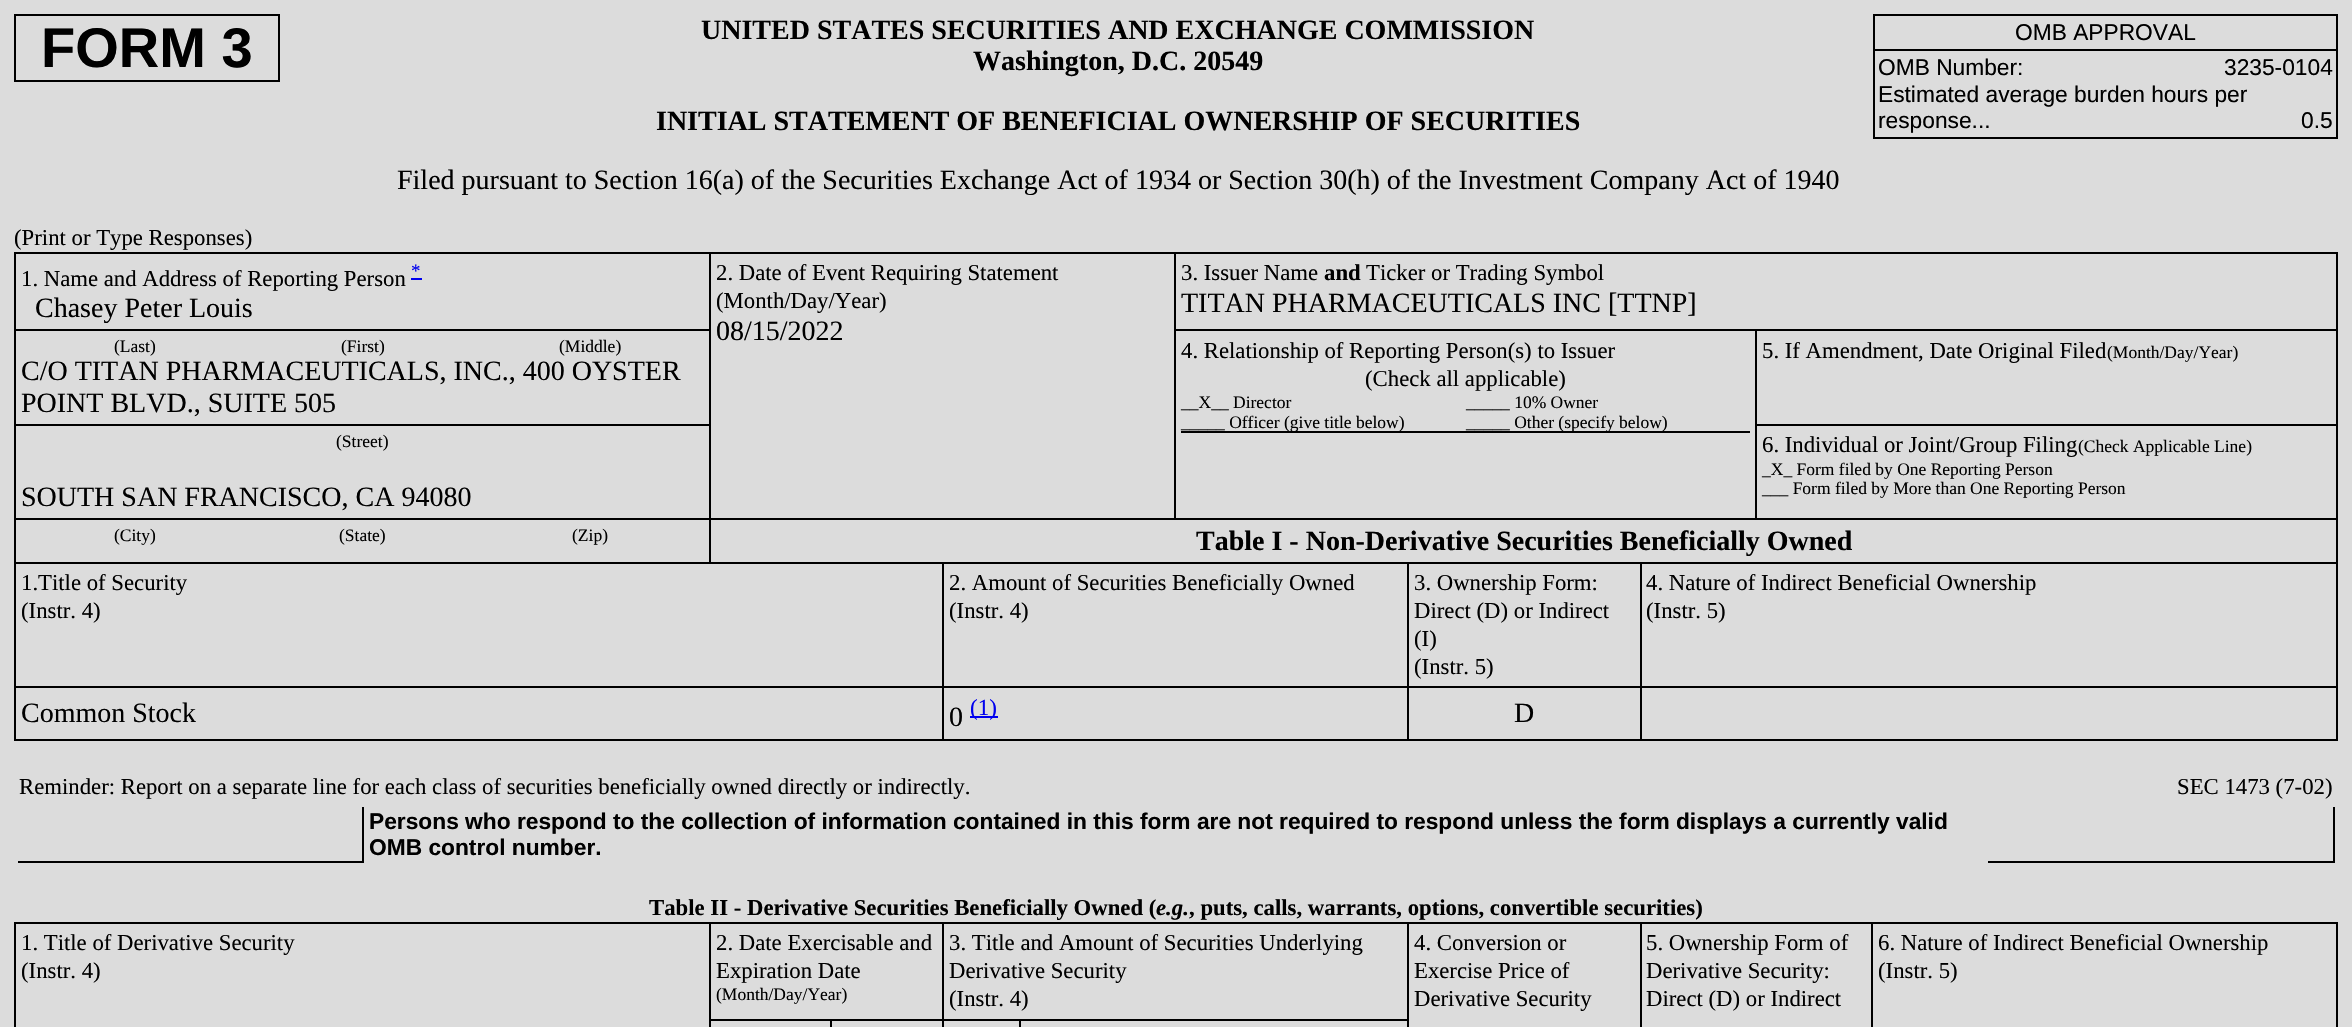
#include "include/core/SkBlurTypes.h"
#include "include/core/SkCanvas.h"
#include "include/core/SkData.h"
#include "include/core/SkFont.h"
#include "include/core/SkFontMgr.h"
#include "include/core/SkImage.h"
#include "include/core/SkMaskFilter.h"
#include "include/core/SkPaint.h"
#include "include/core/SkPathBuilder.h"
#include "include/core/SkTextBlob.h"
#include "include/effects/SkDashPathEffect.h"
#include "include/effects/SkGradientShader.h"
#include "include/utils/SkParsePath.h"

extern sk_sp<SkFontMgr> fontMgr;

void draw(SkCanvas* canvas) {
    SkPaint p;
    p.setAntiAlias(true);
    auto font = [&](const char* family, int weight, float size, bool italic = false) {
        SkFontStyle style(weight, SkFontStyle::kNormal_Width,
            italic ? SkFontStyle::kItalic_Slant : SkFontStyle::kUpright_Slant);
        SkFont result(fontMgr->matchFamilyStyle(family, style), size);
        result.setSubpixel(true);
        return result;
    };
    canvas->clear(0xFFDCDCDC);
    p.setStyle(SkPaint::kStroke_Style);
    p.setStrokeWidth(2);
    p.setColor(0xFF000000);
    canvas->drawRect(SkRect::MakeLTRB(15, 15, 279, 81), p);
    auto font1 = font("Liberation Sans", 700, 56);
    p.setStyle(SkPaint::kFill_Style);
    canvas->drawString("FORM 3", 41, 67, font1, p);
    auto font2 = font("Liberation Serif", 700, 28);
    {
        const struct { const char* s; float x, y; } items[] = {
            {"UNITED STATES SECURITIES AND EXCHANGE COMMISSION", 701, 39},
            {"Washington, D.C. 20549", 973, 70},
            {"INITIAL STATEMENT OF BENEFICIAL OWNERSHIP OF SECURITIES", 656, 130},
        };
        for (auto [s, x, y] : items) {
            canvas->drawString(s, x, y, font2, p);
        }
    }
    auto font3 = font("Liberation Serif", 400, 28);
    canvas->drawString("Filed pursuant to Section 16(a) of the Securities Exchange Act of 1934 or Section 30(h) of the Investment Company Act of 1940", 397, 189, font3, p);
    p.setStyle(SkPaint::kStroke_Style);
    canvas->drawRect(SkRect::MakeLTRB(1874, 15, 2337, 50), p);
    auto font4 = font("Liberation Sans", 400, 22.75f);
    p.setStyle(SkPaint::kFill_Style);
    canvas->drawString("OMB APPROVAL", 2015, 40, font4, p);
    {
        const struct { float l, t, r, b; SkColor color; } items[] = {
            {2336, 51, 2338, 138, 0xFF000000},
            {1873, 137, 2338, 139, 0xFF000000},
            {1873, 51, 1875, 138, 0xFF000000},
        };
        for (auto [l, t, r, b, color] : items) {
            p.setColor(color);
            canvas->drawRect(SkRect::MakeLTRB(l, t, r, b), p);
        }
    }
    {
        const struct { const char* s; float x, y; } items[] = {
            {"OMB Number:", 1878, 75},
            {"3235-0104", 2224, 75},
            {"Estimated average burden hours per", 1878, 102},
            {"response...", 1878, 128},
            {"0.5", 2301, 128},
        };
        for (auto [s, x, y] : items) {
            canvas->drawString(s, x, y, font4, p);
        }
    }
    auto font5 = font("Liberation Serif", 400, 22.75f);
    canvas->drawString("(Print or Type Responses)", 14, 245, font5, p);
    p.setStyle(SkPaint::kStroke_Style);
    canvas->drawRect(SkRect::MakeLTRB(15, 253, 710, 330), p);
    auto font6 = font("Liberation Serif", 400, 19);
    p.setStyle(SkPaint::kFill_Style);
    p.setColor(0xFF0000EE);
    canvas->drawString("*", 411, 277, font6, p);
    p.setColor(0xFF000000);
    canvas->drawString("1. Name and Address of Reporting Person", 21, 286, font5, p);
    p.setColor(0xFF0000EE);
    canvas->drawRect(SkRect::MakeLTRB(411, 278, 422, 280), p);
    p.setColor(0xFF000000);
    canvas->drawString("Chasey Peter Louis", 35, 317, font3, p);
    {
        const struct { float l, t, r, b; SkColor color; } items[] = {
            {711, 252, 2338, 254, 0xFF000000},
            {1174, 252, 1176, 520, 0xFF000000},
            {711, 518, 1176, 520, 0xFF000000},
        };
        for (auto [l, t, r, b, color] : items) {
            p.setColor(color);
            canvas->drawRect(SkRect::MakeLTRB(l, t, r, b), p);
        }
    }
    canvas->drawString("2. Date of Event Requiring Statement", 716, 280, font5, p);
    canvas->drawString("(Month/Day/Year)", 716, 308, font5, p);
    canvas->drawString("08/15/2022", 716, 340, font3, p);
    canvas->drawRect(SkRect::MakeLTRB(2336, 252, 2338, 425), p);
    canvas->drawRect(SkRect::MakeLTRB(1176, 329, 2338, 331), p);
    canvas->drawString("3. Issuer Name", 1181, 280, font5, p);
    auto font7 = font("Liberation Serif", 700, 22.75f);
    canvas->drawString("and", 1324, 280, font7, p);
    canvas->drawString("Ticker or Trading Symbol", 1366, 280, font5, p);
    canvas->drawString("TITAN PHARMACEUTICALS INC [TTNP]", 1181, 312, font3, p);
    {
        const struct { float l, t, r, b; SkColor color; } items[] = {
            {709, 331, 711, 425, 0xFF000000},
            {14, 424, 711, 426, 0xFF000000},
            {14, 331, 16, 425, 0xFF000000},
        };
        for (auto [l, t, r, b, color] : items) {
            p.setColor(color);
            canvas->drawRect(SkRect::MakeLTRB(l, t, r, b), p);
        }
    }
    auto font8 = font("Liberation Serif", 400, 17.5f);
    {
        const struct { const char* s; float x, y; } items[] = {
            {"(Last)", 114, 352},
            {"(First)", 341, 352},
            {"(Middle)", 559, 352},
        };
        for (auto [s, x, y] : items) {
            canvas->drawString(s, x, y, font8, p);
        }
    }
    canvas->drawString("C/O TITAN PHARMACEUTICALS, INC., 400 OYSTER", 21, 380, font3, p);
    canvas->drawString("POINT BLVD., SUITE 505", 21, 412, font3, p);
    canvas->drawRect(SkRect::MakeLTRB(1755, 331, 1757, 520), p);
    canvas->drawRect(SkRect::MakeLTRB(1176, 518, 1757, 520), p);
    canvas->drawString("4. Relationship of Reporting Person(s) to Issuer", 1181, 358, font5, p);
    canvas->drawString("(Check all applicable)", 1365, 386, font5, p);
    canvas->drawString("__X__ Director", 1181, 408, font8, p);
    canvas->drawString("_____ 10% Owner", 1466, 408, font8, p);
    canvas->drawRect(SkRect::MakeLTRB(1181, 431, 1750, 433), p);
    canvas->drawString("_____ Officer (give title below)", 1181, 428, font8, p);
    canvas->drawString("_____ Other (specify below)", 1466, 428, font8, p);
    canvas->drawRect(SkRect::MakeLTRB(1757, 424, 2338, 426), p);
    canvas->drawString("5. If Amendment, Date Original Filed", 1762, 358, font5, p);
    canvas->drawString("(Month/Day/Year)", 2107, 358, font8, p);
    {
        const struct { float l, t, r, b; SkColor color; } items[] = {
            {709, 425, 711, 564, 0xFF000000},
            {14, 518, 711, 520, 0xFF000000},
            {14, 425, 16, 520, 0xFF000000},
        };
        for (auto [l, t, r, b, color] : items) {
            p.setColor(color);
            canvas->drawRect(SkRect::MakeLTRB(l, t, r, b), p);
        }
    }
    canvas->drawString("(Street)", 336, 447, font8, p);
    canvas->drawString("SOUTH SAN FRANCISCO, CA 94080", 21, 506, font3, p);
    canvas->drawRect(SkRect::MakeLTRB(2336, 425, 2338, 740), p);
    canvas->drawRect(SkRect::MakeLTRB(1757, 518, 2338, 520), p);
    canvas->drawString("6. Individual or Joint/Group Filing", 1762, 452, font5, p);
    {
        const struct { const char* s; float x, y; } items[] = {
            {"(Check Applicable Line)", 2078, 452},
            {"_X_ Form filed by One Reporting Person", 1762, 475},
            {"___ Form filed by More than One Reporting Person", 1762, 494},
        };
        for (auto [s, x, y] : items) {
            canvas->drawString(s, x, y, font8, p);
        }
    }
    canvas->drawRect(SkRect::MakeLTRB(14, 562, 2338, 564), p);
    canvas->drawRect(SkRect::MakeLTRB(14, 520, 16, 564), p);
    {
        const struct { const char* s; float x, y; } items[] = {
            {"(City)", 114, 541},
            {"(State)", 339, 541},
            {"(Zip)", 572, 541},
        };
        for (auto [s, x, y] : items) {
            canvas->drawString(s, x, y, font8, p);
        }
    }
    canvas->drawString("Table I - Non-Derivative Securities Beneficially Owned", 1196, 550, font2, p);
    {
        const struct { float l, t, r, b; SkColor color; } items[] = {
            {942, 564, 944, 740, 0xFF000000},
            {14, 686, 943, 688, 0xFF000000},
            {14, 564, 16, 688, 0xFF000000},
        };
        for (auto [l, t, r, b, color] : items) {
            p.setColor(color);
            canvas->drawRect(SkRect::MakeLTRB(l, t, r, b), p);
        }
    }
    canvas->drawString("1.Title of Security", 21, 590, font5, p);
    canvas->drawString("(Instr. 4)", 21, 618, font5, p);
    canvas->drawRect(SkRect::MakeLTRB(1407, 564, 1409, 740), p);
    canvas->drawRect(SkRect::MakeLTRB(943, 686, 1409, 688), p);
    canvas->drawString("2. Amount of Securities Beneficially Owned", 949, 590, font5, p);
    canvas->drawString("(Instr. 4)", 949, 618, font5, p);
    canvas->drawRect(SkRect::MakeLTRB(1640, 564, 1642, 740), p);
    canvas->drawRect(SkRect::MakeLTRB(1409, 686, 2338, 688), p);
    {
        const struct { const char* s; float x, y; } items[] = {
            {"3. Ownership Form:", 1414, 590},
            {"Direct (D) or Indirect", 1414, 618},
            {"(I)", 1414, 646},
            {"(Instr. 5)", 1414, 674},
            {"4. Nature of Indirect Beneficial Ownership", 1646, 590},
            {"(Instr. 5)", 1646, 618},
        };
        for (auto [s, x, y] : items) {
            canvas->drawString(s, x, y, font5, p);
        }
    }
    canvas->drawRect(SkRect::MakeLTRB(14, 739, 2338, 741), p);
    canvas->drawRect(SkRect::MakeLTRB(14, 688, 16, 740), p);
    canvas->drawString("Common Stock", 21, 722, font3, p);
    canvas->drawString("0", 949, 726, font3, p);
    p.setColor(0xFF0000EE);
    canvas->drawRect(SkRect::MakeLTRB(970, 716, 998, 718), p);
    auto font9 = font("Liberation Serif", 400, 23);
    canvas->drawString("(1)", 970, 715, font9, p);
    p.setColor(0xFF000000);
    canvas->drawString("D", 1514, 722, font3, p);
    canvas->drawString("Reminder: Report on a separate line for each class of securities beneficially owned directly or indirectly.", 19, 794, font5, p);
    canvas->drawString("SEC 1473 (7-02)", 2177, 794, font5, p);
    canvas->drawRect(SkRect::MakeLTRB(362, 807, 364, 863), p);
    canvas->drawRect(SkRect::MakeLTRB(18, 861, 364, 863), p);
    auto font10 = font("Liberation Sans", 700, 22.75f);
    canvas->drawString("Persons who respond to the collection of information contained in this form are not required to respond unless the form displays a currently valid", 369, 829, font10, p);
    canvas->drawString("OMB control number.", 369, 855, font10, p);
    canvas->drawRect(SkRect::MakeLTRB(2333, 807, 2335, 863), p);
    canvas->drawRect(SkRect::MakeLTRB(1988, 861, 2335, 863), p);
    canvas->drawString("Table II - Derivative Securities Beneficially Owned (", 649, 915, font7, p);
    auto font11 = font("Liberation Serif", 700, 22.75f, true);
    canvas->drawString("e.g.", 1156, 915, font11, p);
    canvas->drawString(", puts, calls, warrants, options, convertible securities)", 1189, 915, font7, p);
    p.setStyle(SkPaint::kStroke_Style);
    canvas->drawRect(SkRect::MakeLTRB(15, 923, 710, 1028), p);
    p.setStyle(SkPaint::kFill_Style);
    canvas->drawString("1. Title of Derivative Security", 21, 950, font5, p);
    canvas->drawString("(Instr. 4)", 21, 978, font5, p);
    {
        const struct { float l, t, r, b; SkColor color; } items[] = {
            {711, 922, 943, 924, 0xFF000000},
            {942, 922, 944, 1020, 0xFF000000},
            {711, 1019, 943, 1021, 0xFF000000},
        };
        for (auto [l, t, r, b, color] : items) {
            p.setColor(color);
            canvas->drawRect(SkRect::MakeLTRB(l, t, r, b), p);
        }
    }
    canvas->drawString("2. Date Exercisable and", 716, 950, font5, p);
    canvas->drawString("Expiration Date", 716, 978, font5, p);
    canvas->drawString("(Month/Day/Year)", 716, 1000, font8, p);
    {
        const struct { float l, t, r, b; SkColor color; } items[] = {
            {943, 922, 2338, 924, 0xFF000000},
            {1407, 922, 1409, 1020, 0xFF000000},
            {943, 1019, 1409, 1021, 0xFF000000},
        };
        for (auto [l, t, r, b, color] : items) {
            p.setColor(color);
            canvas->drawRect(SkRect::MakeLTRB(l, t, r, b), p);
        }
    }
    {
        const struct { const char* s; float x, y; } items[] = {
            {"3. Title and Amount of Securities Underlying", 949, 950},
            {"Derivative Security", 949, 978},
            {"(Instr. 4)", 949, 1006},
        };
        for (auto [s, x, y] : items) {
            canvas->drawString(s, x, y, font5, p);
        }
    }
    canvas->drawRect(SkRect::MakeLTRB(1640, 922, 1642, 1027), p);
    {
        const struct { const char* s; float x, y; } items[] = {
            {"4. Conversion or", 1414, 950},
            {"Exercise Price of", 1414, 978},
            {"Derivative Security", 1414, 1006},
        };
        for (auto [s, x, y] : items) {
            canvas->drawString(s, x, y, font5, p);
        }
    }
    canvas->drawRect(SkRect::MakeLTRB(1871, 922, 1873, 1027), p);
    {
        const struct { const char* s; float x, y; } items[] = {
            {"5. Ownership Form of", 1646, 950},
            {"Derivative Security:", 1646, 978},
            {"Direct (D) or Indirect", 1646, 1006},
        };
        for (auto [s, x, y] : items) {
            canvas->drawString(s, x, y, font5, p);
        }
    }
    canvas->drawRect(SkRect::MakeLTRB(2336, 922, 2338, 1027), p);
    canvas->drawString("6. Nature of Indirect Beneficial Ownership", 1878, 950, font5, p);
    canvas->drawString("(Instr. 5)", 1878, 978, font5, p);
    {
        const struct { float l, t, r, b; SkColor color; } items[] = {
            {830, 1020, 832, 1027, 0xFF000000},
            {942, 1020, 944, 1027, 0xFF000000},
            {1019, 1020, 1021, 1027, 0xFF000000},
            {1407, 1020, 1409, 1027, 0xFF000000},
        };
        for (auto [l, t, r, b, color] : items) {
            p.setColor(color);
            canvas->drawRect(SkRect::MakeLTRB(l, t, r, b), p);
        }
    }
}
